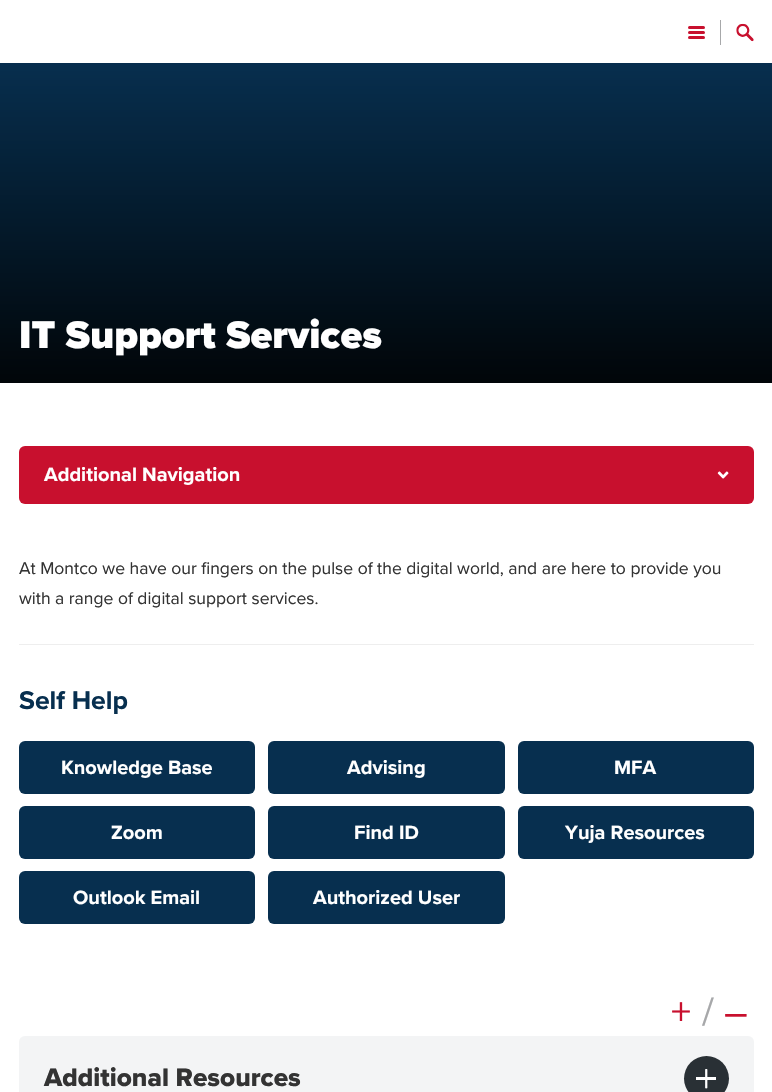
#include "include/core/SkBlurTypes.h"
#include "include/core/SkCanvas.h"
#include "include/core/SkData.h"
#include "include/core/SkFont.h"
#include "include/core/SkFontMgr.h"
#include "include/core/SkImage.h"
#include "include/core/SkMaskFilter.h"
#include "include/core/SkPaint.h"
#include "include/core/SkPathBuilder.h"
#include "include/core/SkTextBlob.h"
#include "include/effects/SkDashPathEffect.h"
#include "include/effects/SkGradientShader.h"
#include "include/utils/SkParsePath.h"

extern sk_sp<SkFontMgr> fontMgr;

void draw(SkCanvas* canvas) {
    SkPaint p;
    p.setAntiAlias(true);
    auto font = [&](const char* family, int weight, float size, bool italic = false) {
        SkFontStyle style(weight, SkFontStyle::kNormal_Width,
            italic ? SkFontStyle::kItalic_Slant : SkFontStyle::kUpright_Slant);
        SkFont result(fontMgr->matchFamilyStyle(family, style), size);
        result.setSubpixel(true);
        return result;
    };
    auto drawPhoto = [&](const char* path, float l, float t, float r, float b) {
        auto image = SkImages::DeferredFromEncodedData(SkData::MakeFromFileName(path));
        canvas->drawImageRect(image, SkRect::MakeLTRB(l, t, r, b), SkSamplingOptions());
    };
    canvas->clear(0xFFFFFFFF);
    p.setColor(0xFFA7A8AA);
    canvas->drawRect(SkRect::MakeLTRB(720, 20, 721, 45), p);
    p.setColor(0xFFC8102E);
    canvas->drawRoundRect(SkRect::MakeLTRB(688, 26, 705, 29), 1.5f, 1.5f, p);
    canvas->drawRoundRect(SkRect::MakeLTRB(688, 31, 705, 34), 1.5f, 1.5f, p);
    canvas->drawRoundRect(SkRect::MakeLTRB(688, 36, 705, 39), 1.5f, 1.5f, p);
    drawPhoto("media/1.png", 736, 23, 754, 42);
    {
        const SkColor colors[] = {0xFF072F4F, 0xFF010508};
        const float stops[] = {0, 1};
        const SkPoint ends[] = {{386, 59}, {386, 386}};
        p.setShader(SkGradientShader::MakeLinear(ends, colors, stops, 2, SkTileMode::kClamp));
        p.setAlpha(255);
    }
    canvas->drawRect(SkRect::MakeLTRB(0, 63, 772, 383), p);
    auto font1 = font("Proxima Nova", 900, 40);
    p.setShader(nullptr);
    p.setColor(0xFFFFFFFF);
    canvas->drawString("IT Support Services", 19, 348, font1, p);
    p.setColor(0xFFC8102E);
    canvas->drawRoundRect(SkRect::MakeLTRB(19, 446, 754, 504), 6, 6, p);
    auto font2 = font("Proxima Nova", 700, 20);
    p.setColor(0xFFFFFFFF);
    canvas->drawString("Additional Navigation", 44, 481, font2, p);
    drawPhoto("media/2.png", 717, 471, 729, 479);
    auto font3 = font("Proxima Nova", 400, 17.5f);
    p.setColor(0xFF333333);
    canvas->drawString("At Montco we have our fingers on the pulse of the digital world, and are here to provide you", 19, 574, font3, p);
    canvas->drawString("with a range of digital support services.", 19, 604, font3, p);
    p.setColor(0xFFEEEEEE);
    canvas->drawRect(SkRect::MakeLTRB(19, 644, 754, 645), p);
    auto font4 = font("Proxima Nova", 700, 26.5f);
    p.setColor(0xFF072F4F);
    canvas->drawString("Self Help", 19, 709, font4, p);
    canvas->drawRoundRect(SkRect::MakeLTRB(19, 741, 255, 794), 6, 6, p);
    p.setColor(0xFFFFFFFF);
    canvas->drawString("Knowledge Base", 61, 774, font2, p);
    p.setColor(0xFF072F4F);
    canvas->drawRoundRect(SkRect::MakeLTRB(268, 741, 505, 794), 6, 6, p);
    p.setColor(0xFFFFFFFF);
    canvas->drawString("Advising", 347, 774, font2, p);
    p.setColor(0xFF072F4F);
    canvas->drawRoundRect(SkRect::MakeLTRB(518, 741, 754, 794), 6, 6, p);
    p.setColor(0xFFFFFFFF);
    canvas->drawString("MFA", 614, 774, font2, p);
    p.setColor(0xFF072F4F);
    canvas->drawRoundRect(SkRect::MakeLTRB(19, 806, 255, 859), 6, 6, p);
    p.setColor(0xFFFFFFFF);
    canvas->drawString("Zoom", 111, 839, font2, p);
    p.setColor(0xFF072F4F);
    canvas->drawRoundRect(SkRect::MakeLTRB(268, 806, 505, 859), 6, 6, p);
    p.setColor(0xFFFFFFFF);
    canvas->drawString("Find ID", 354, 839, font2, p);
    p.setColor(0xFF072F4F);
    canvas->drawRoundRect(SkRect::MakeLTRB(518, 806, 754, 859), 6, 6, p);
    p.setColor(0xFFFFFFFF);
    canvas->drawString("Yuja Resources", 565, 839, font2, p);
    p.setColor(0xFF072F4F);
    canvas->drawRoundRect(SkRect::MakeLTRB(19, 871, 255, 924), 6, 6, p);
    p.setColor(0xFFFFFFFF);
    canvas->drawString("Outlook Email", 73, 904, font2, p);
    p.setColor(0xFF072F4F);
    canvas->drawRoundRect(SkRect::MakeLTRB(268, 871, 505, 924), 6, 6, p);
    p.setColor(0xFFFFFFFF);
    canvas->drawString("Authorized User", 313, 904, font2, p);
    auto font5 = font("Proxima Nova", 400, 40);
    p.setColor(0xFFC8102E);
    canvas->drawString("+", 671, 1025, font5, p);
    p.setColor(0xFFA7A8AA);
    canvas->drawString("/", 702, 1025, font5, p);
    p.setColor(0xFFC8102E);
    canvas->drawString("–", 724, 1025, font5, p);
    p.setColor(0xFFF3F4F5);
    canvas->drawRoundRect(SkRect::MakeLTRB(19, 1036, 754, 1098), 6, 6, p);
    auto font6 = font("Proxima Nova", 800, 26.25f);
    p.setColor(0xFF333333);
    canvas->drawString("Additional Resources", 44, 1086, font6, p);
    p.setColor(0xFF293035);
    canvas->drawCircle(706.5f, 1078.5f, 22.5f, p);
    drawPhoto("media/3.png", 705, 1069, 708, 1089);
    p.setColor(0xFFFFFFFF);
    canvas->drawRect(SkRect::MakeLTRB(696, 1077, 716, 1080), p);
}
